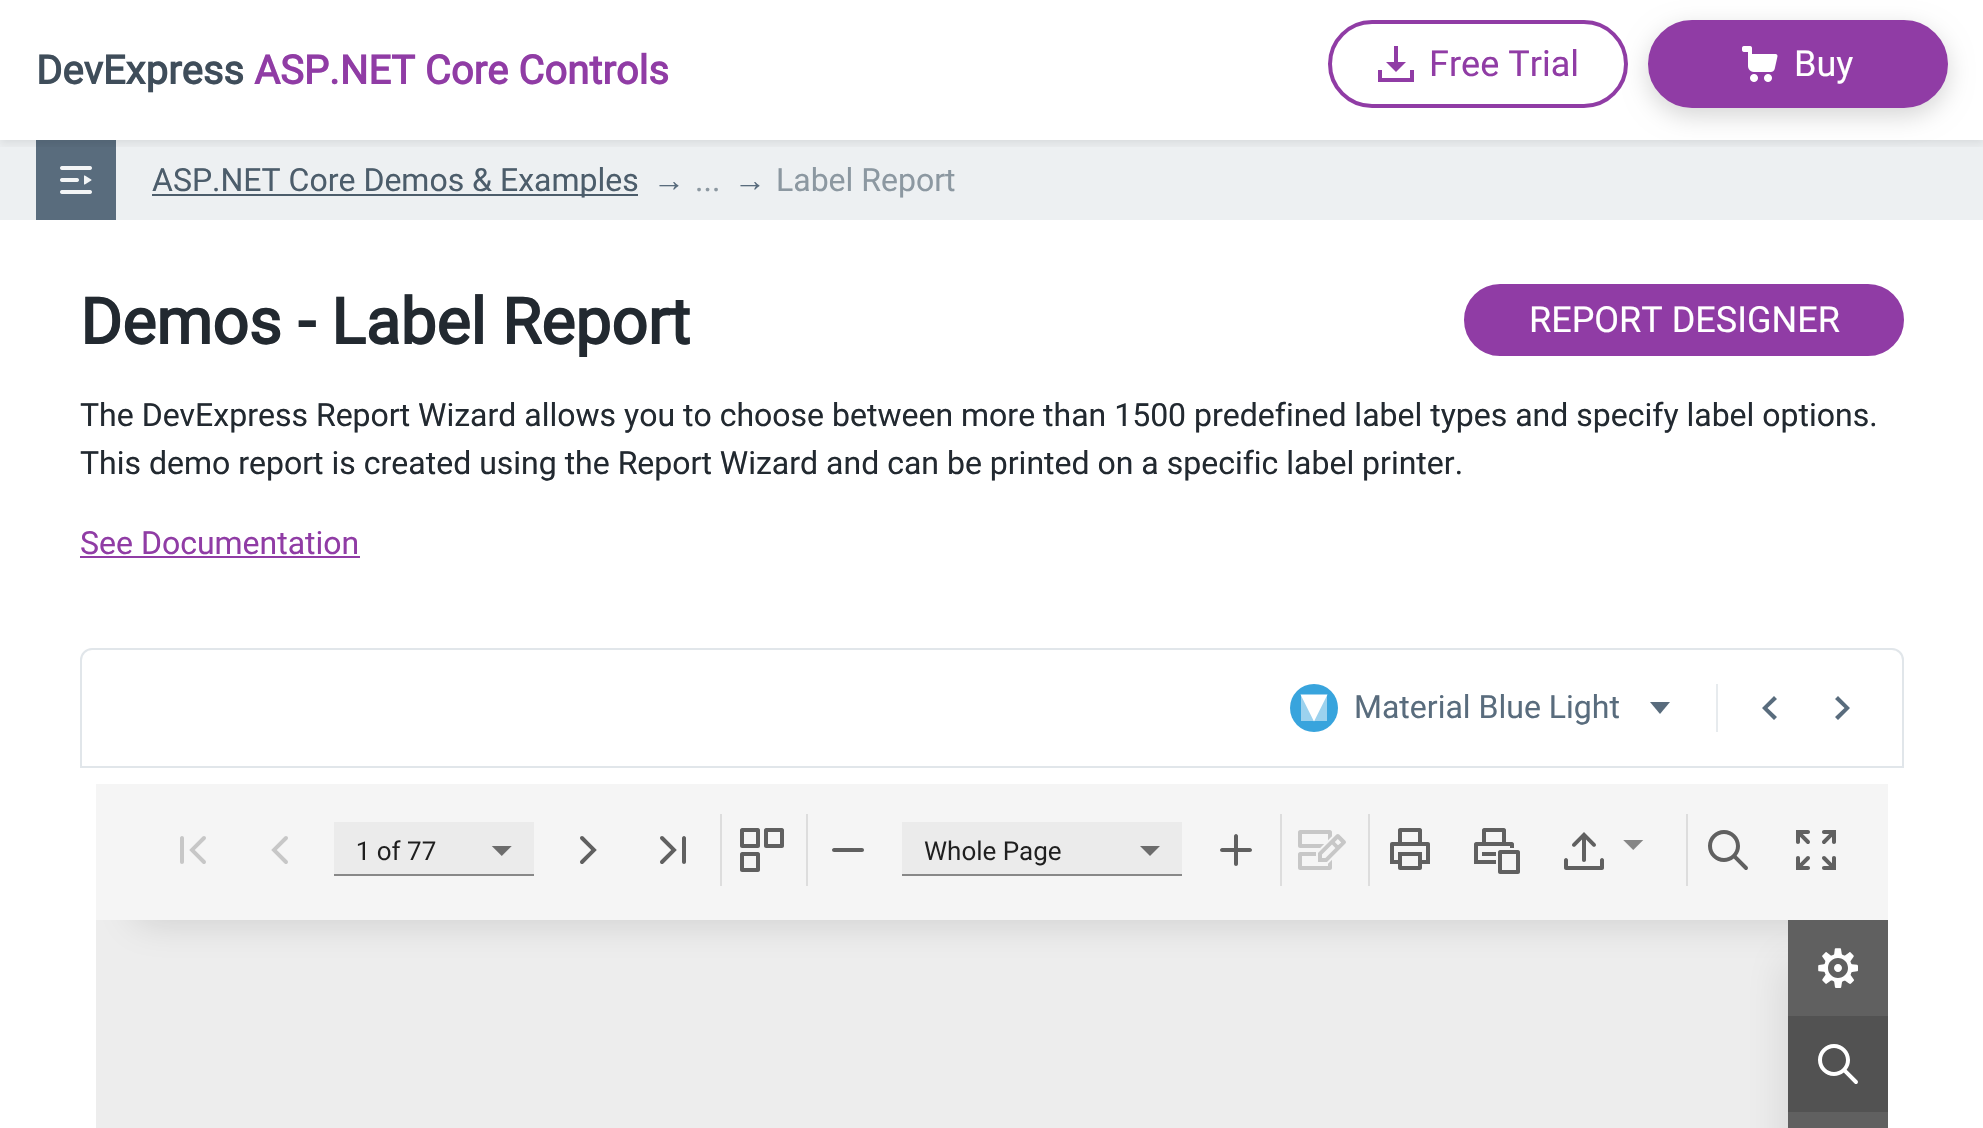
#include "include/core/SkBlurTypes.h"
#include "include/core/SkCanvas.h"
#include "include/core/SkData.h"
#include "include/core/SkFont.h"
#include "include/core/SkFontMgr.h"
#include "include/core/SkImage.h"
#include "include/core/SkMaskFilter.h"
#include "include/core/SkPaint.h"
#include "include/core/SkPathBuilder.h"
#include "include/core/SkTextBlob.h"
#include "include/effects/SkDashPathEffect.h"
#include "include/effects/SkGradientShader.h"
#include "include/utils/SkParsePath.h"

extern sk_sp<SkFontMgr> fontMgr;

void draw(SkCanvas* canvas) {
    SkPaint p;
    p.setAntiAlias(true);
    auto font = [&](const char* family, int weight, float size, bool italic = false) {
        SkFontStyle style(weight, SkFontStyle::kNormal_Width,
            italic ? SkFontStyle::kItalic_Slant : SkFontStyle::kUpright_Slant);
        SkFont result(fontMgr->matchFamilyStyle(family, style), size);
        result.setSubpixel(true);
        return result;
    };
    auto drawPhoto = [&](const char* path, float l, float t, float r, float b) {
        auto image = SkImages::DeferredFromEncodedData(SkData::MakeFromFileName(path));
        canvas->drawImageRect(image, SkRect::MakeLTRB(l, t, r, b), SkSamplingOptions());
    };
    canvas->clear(0xFFFFFFFF);
    p.setColor(0xFFEDF0F2);
    canvas->drawRect(SkRect::MakeLTRB(0, 140, 1983, 220), p);
    p.setColor(0xFF596C7D);
    canvas->drawRect(SkRect::MakeLTRB(36, 140, 116, 220), p);
    canvas->save();
    canvas->clipRect(SkRect::MakeLTRB(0, 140, 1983, 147));
    p.setColor(0x14000000);
    p.setMaskFilter(SkMaskFilter::MakeBlur(kNormal_SkBlurStyle, 4));
    canvas->drawRect(SkRect::MakeLTRB(0, 4, 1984, 144), p);
    p.setMaskFilter(nullptr);
    canvas->restore();
    auto font1 = font("Roboto", 700, 40);
    p.setColor(0xFF3F4D5A);
    canvas->drawString("DevExpress", 36, 84, font1, p);
    p.setColor(0xFF903CA5);
    canvas->drawString("ASP.NET Core Controls", 254, 84, font1, p);
    p.setStyle(SkPaint::kStroke_Style);
    p.setStrokeWidth(4);
    canvas->drawRoundRect(SkRect::MakeLTRB(1330, 22, 1626, 106), 42, 42, p);
    drawPhoto("media/1.png", 1378, 46, 1414, 82);
    auto font2 = font("Roboto", 400, 36);
    p.setStyle(SkPaint::kFill_Style);
    canvas->drawString("Free Trial", 1429, 76, font2, p);
    p.setColor(0x29000000);
    p.setMaskFilter(SkMaskFilter::MakeBlur(kNormal_SkBlurStyle, 12));
    canvas->drawRoundRect(SkRect::MakeLTRB(1648, 28, 1948, 116), 44, 44, p);
    p.setMaskFilter(nullptr);
    p.setColor(0xFF903CA5);
    canvas->drawRoundRect(SkRect::MakeLTRB(1650, 22, 1946, 106), 42, 42, p);
    p.setStyle(SkPaint::kStroke_Style);
    canvas->drawRoundRect(SkRect::MakeLTRB(1650, 22, 1946, 106), 42, 42, p);
    drawPhoto("media/2.png", 1742, 46, 1778, 82);
    p.setStyle(SkPaint::kFill_Style);
    p.setColor(0xFFFFFFFF);
    canvas->drawString("Buy", 1794, 76, font2, p);
    drawPhoto("media/3.png", 60, 166, 92, 194);
    p.setColor(0xFF4C5D6B);
    canvas->drawRect(SkRect::MakeLTRB(152, 194, 638, 196), p);
    auto font3 = font("Roboto", 400, 32);
    canvas->drawString("ASP.NET Core Demos & Examples", 152, 191, font3, p);
    auto font4 = font("Liberation Sans", 400, 32);
    p.setColor(0xFF596C7D);
    canvas->drawString("→", 653, 191, font4, p);
    p.setColor(0xFF8C98A1);
    canvas->drawString("...", 695, 191, font3, p);
    p.setColor(0xFF596C7D);
    canvas->drawString("→", 734, 191, font4, p);
    p.setColor(0xFF8C98A1);
    canvas->drawString("Label Report", 776, 191, font3, p);
    auto font5 = font("Roboto", 700, 64);
    p.setColor(0xFF222930);
    canvas->drawString("Demos - Label Report", 80, 344, font5, p);
    p.setColor(0xFF903CA5);
    canvas->drawRoundRect(SkRect::MakeLTRB(1466, 286, 1902, 354), 34, 34, p);
    p.setStyle(SkPaint::kStroke_Style);
    canvas->drawRoundRect(SkRect::MakeLTRB(1466, 286, 1902, 354), 34, 34, p);
    p.setStyle(SkPaint::kFill_Style);
    p.setColor(0xFFFFFFFF);
    canvas->drawString("REPORT DESIGNER", 1529, 332, font2, p);
    p.setColor(0xFF222930);
    canvas->drawString("The DevExpress Report Wizard allows you to choose between more than 1500 predefined label types and specify label options.", 80, 426, font3, p);
    canvas->drawString("This demo report is created using the Report Wizard and can be printed on a specific label printer.", 80, 474, font3, p);
    p.setColor(0xFF903CA5);
    canvas->drawString("See Documentation", 80, 554, font3, p);
    canvas->drawRect(SkRect::MakeLTRB(80, 556, 360, 558), p);
    p.setStyle(SkPaint::kStroke_Style);
    p.setStrokeWidth(2);
    p.setColor(0xFFE1E6EA);
    canvas->drawPath(SkPathBuilder().moveTo(92, 649).lineTo(1892, 649).cubicTo(1898, 649, 1903, 654, 1903, 660).lineTo(1903, 767).lineTo(81, 767).lineTo(81, 660).cubicTo(81, 654, 86, 649, 92, 649).close().detach(), p);
    p.setStyle(SkPaint::kFill_Style);
    p.setColor(0xFF38A4DD);
    canvas->drawCircle(1314, 708, 24, p);
    p.setColor(0xFF9CD2EE);
    canvas->drawRect(SkRect::MakeLTRB(1301, 695, 1327, 721), p);
    p.setColor(0xFFFFFFFF);
    canvas->drawPath(SkPathBuilder().moveTo(1314, 721.5f).lineTo(1300.5f, 694.5f).lineTo(1327.5f, 694.5f).close().detach(), p);
    p.setColor(0xFF596C7D);
    canvas->drawString("Material Blue Light", 1354, 718, font3, p);
    canvas->drawPath(SkPathBuilder().moveTo(1660, 714).lineTo(1670, 702).lineTo(1650, 702).close().detach(), p);
    p.setColor(0xFFE7EBEE);
    canvas->drawRect(SkRect::MakeLTRB(1716, 684, 1718, 732), p);
    p.setColor(0xFF596C7D);
    canvas->drawPath(SkPathBuilder().moveTo(1777, 699).lineTo(1767.5f, 708).lineTo(1777, 717).lineTo(1774, 720).lineTo(1762, 708).lineTo(1774, 696).close().detach(), p);
    canvas->drawPath(SkPathBuilder().moveTo(1835, 699).lineTo(1844.5f, 708).lineTo(1835, 717).lineTo(1838, 720).lineTo(1850, 708).lineTo(1838, 696).close().detach(), p);
    drawPhoto("media/4.png", 96, 784, 1888, 1128);
}
